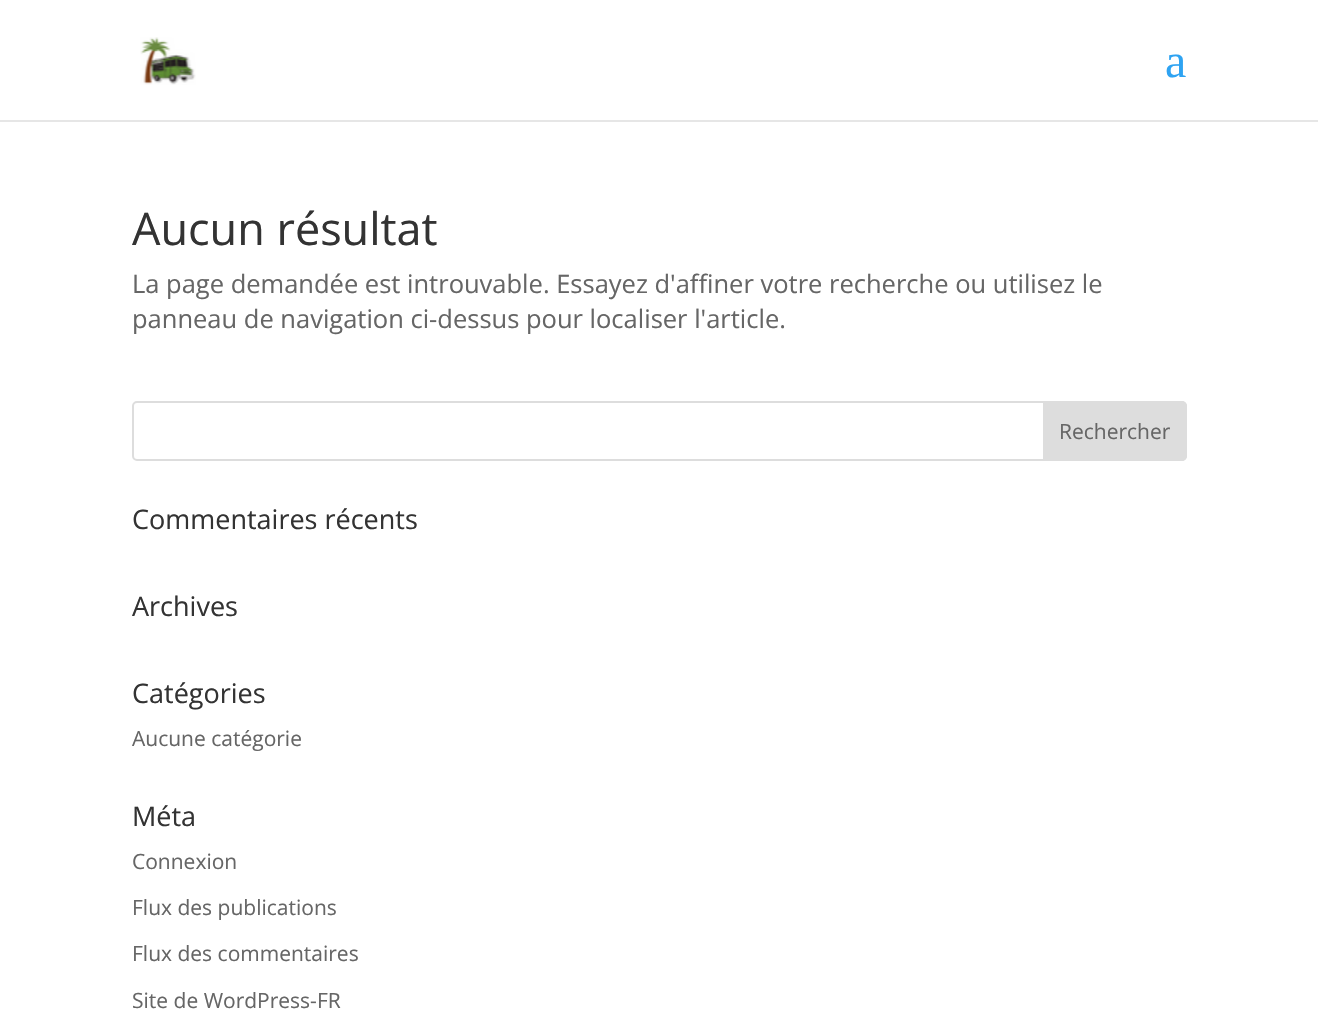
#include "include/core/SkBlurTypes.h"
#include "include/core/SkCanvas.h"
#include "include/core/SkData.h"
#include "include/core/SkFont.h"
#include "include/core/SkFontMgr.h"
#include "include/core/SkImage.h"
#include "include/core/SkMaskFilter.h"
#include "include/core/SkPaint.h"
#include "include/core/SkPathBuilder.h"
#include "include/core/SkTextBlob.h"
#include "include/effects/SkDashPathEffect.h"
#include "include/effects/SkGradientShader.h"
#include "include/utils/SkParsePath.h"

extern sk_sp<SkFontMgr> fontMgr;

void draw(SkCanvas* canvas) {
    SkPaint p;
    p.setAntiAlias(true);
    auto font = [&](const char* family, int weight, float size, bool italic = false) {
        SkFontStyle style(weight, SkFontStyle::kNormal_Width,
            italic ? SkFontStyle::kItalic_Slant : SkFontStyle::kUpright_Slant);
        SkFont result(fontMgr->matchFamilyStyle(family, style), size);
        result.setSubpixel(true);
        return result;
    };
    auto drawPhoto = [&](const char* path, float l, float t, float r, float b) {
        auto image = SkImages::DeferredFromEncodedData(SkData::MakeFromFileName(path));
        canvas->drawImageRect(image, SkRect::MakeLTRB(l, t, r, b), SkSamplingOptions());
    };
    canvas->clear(0xFFFFFFFF);
    p.setColor(0xFFE6E6E6);
    canvas->drawPath(SkPathBuilder().moveTo(0, 120).lineTo(0, 122).lineTo(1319, 122).lineTo(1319, 2).lineTo(1318, 2).lineTo(1318, 120).close().detach(), p);
    drawPhoto("media/1.png", 140, 37, 196, 85);
    auto font1 = font("Liberation Serif", 400, 48);
    p.setColor(0xFF2EA3F2);
    canvas->drawString("a", 1165, 77, font1, p);
    auto font2 = font("Open Sans", 400, 45);
    p.setColor(0xFF333333);
    canvas->drawString("Aucun résultat", 132, 245, font2, p);
    auto font3 = font("Open Sans", 400, 25.5f);
    p.setColor(0xFF666666);
    canvas->drawString("La page demandée est introuvable. Essayez d'affiner votre recherche ou utilisez le", 132, 293, font3, p);
    canvas->drawString("panneau de navigation ci-dessus pour localiser l'article.", 132, 328, font3, p);
    p.setStyle(SkPaint::kStroke_Style);
    p.setStrokeWidth(2);
    p.setColor(0xFFDDDDDD);
    canvas->drawRoundRect(SkRect::MakeLTRB(133, 402, 1186, 460), 4, 4, p);
    p.setStyle(SkPaint::kFill_Style);
    canvas->drawPath(SkPathBuilder().moveTo(1044, 402).lineTo(1182, 402).cubicTo(1184, 402, 1186, 404, 1186, 406).lineTo(1186, 456).cubicTo(1186, 458, 1184, 460, 1182, 460).lineTo(1044, 460).close().detach(), p);
    p.setStyle(SkPaint::kStroke_Style);
    canvas->drawPath(SkPathBuilder().moveTo(1044, 402).lineTo(1182, 402).cubicTo(1184, 402, 1186, 404, 1186, 406).lineTo(1186, 456).cubicTo(1186, 458, 1184, 460, 1182, 460).lineTo(1044, 460).close().detach(), p);
    auto font4 = font("Open Sans", 400, 21);
    p.setStyle(SkPaint::kFill_Style);
    p.setColor(0xFF666666);
    canvas->drawString("Rechercher", 1059, 439, font4, p);
    auto font5 = font("Open Sans", 400, 27);
    p.setColor(0xFF333333);
    {
        const struct { const char* s; float x, y; } items[] = {
            {"Commentaires récents", 132, 529},
            {"Archives", 132, 616},
            {"Catégories", 132, 703},
        };
        for (auto [s, x, y] : items) {
            canvas->drawString(s, x, y, font5, p);
        }
    }
    p.setColor(0xFF666666);
    canvas->drawString("Aucune catégorie", 132, 746, font4, p);
    p.setColor(0xFF333333);
    canvas->drawString("Méta", 132, 826, font5, p);
    p.setColor(0xFF666666);
    {
        const struct { const char* s; float x, y; } items[] = {
            {"Connexion", 132, 869},
            {"Flux des publications", 132, 915},
            {"Flux des commentaires", 132, 961},
            {"Site de WordPress-FR", 132, 1008},
        };
        for (auto [s, x, y] : items) {
            canvas->drawString(s, x, y, font4, p);
        }
    }
}
